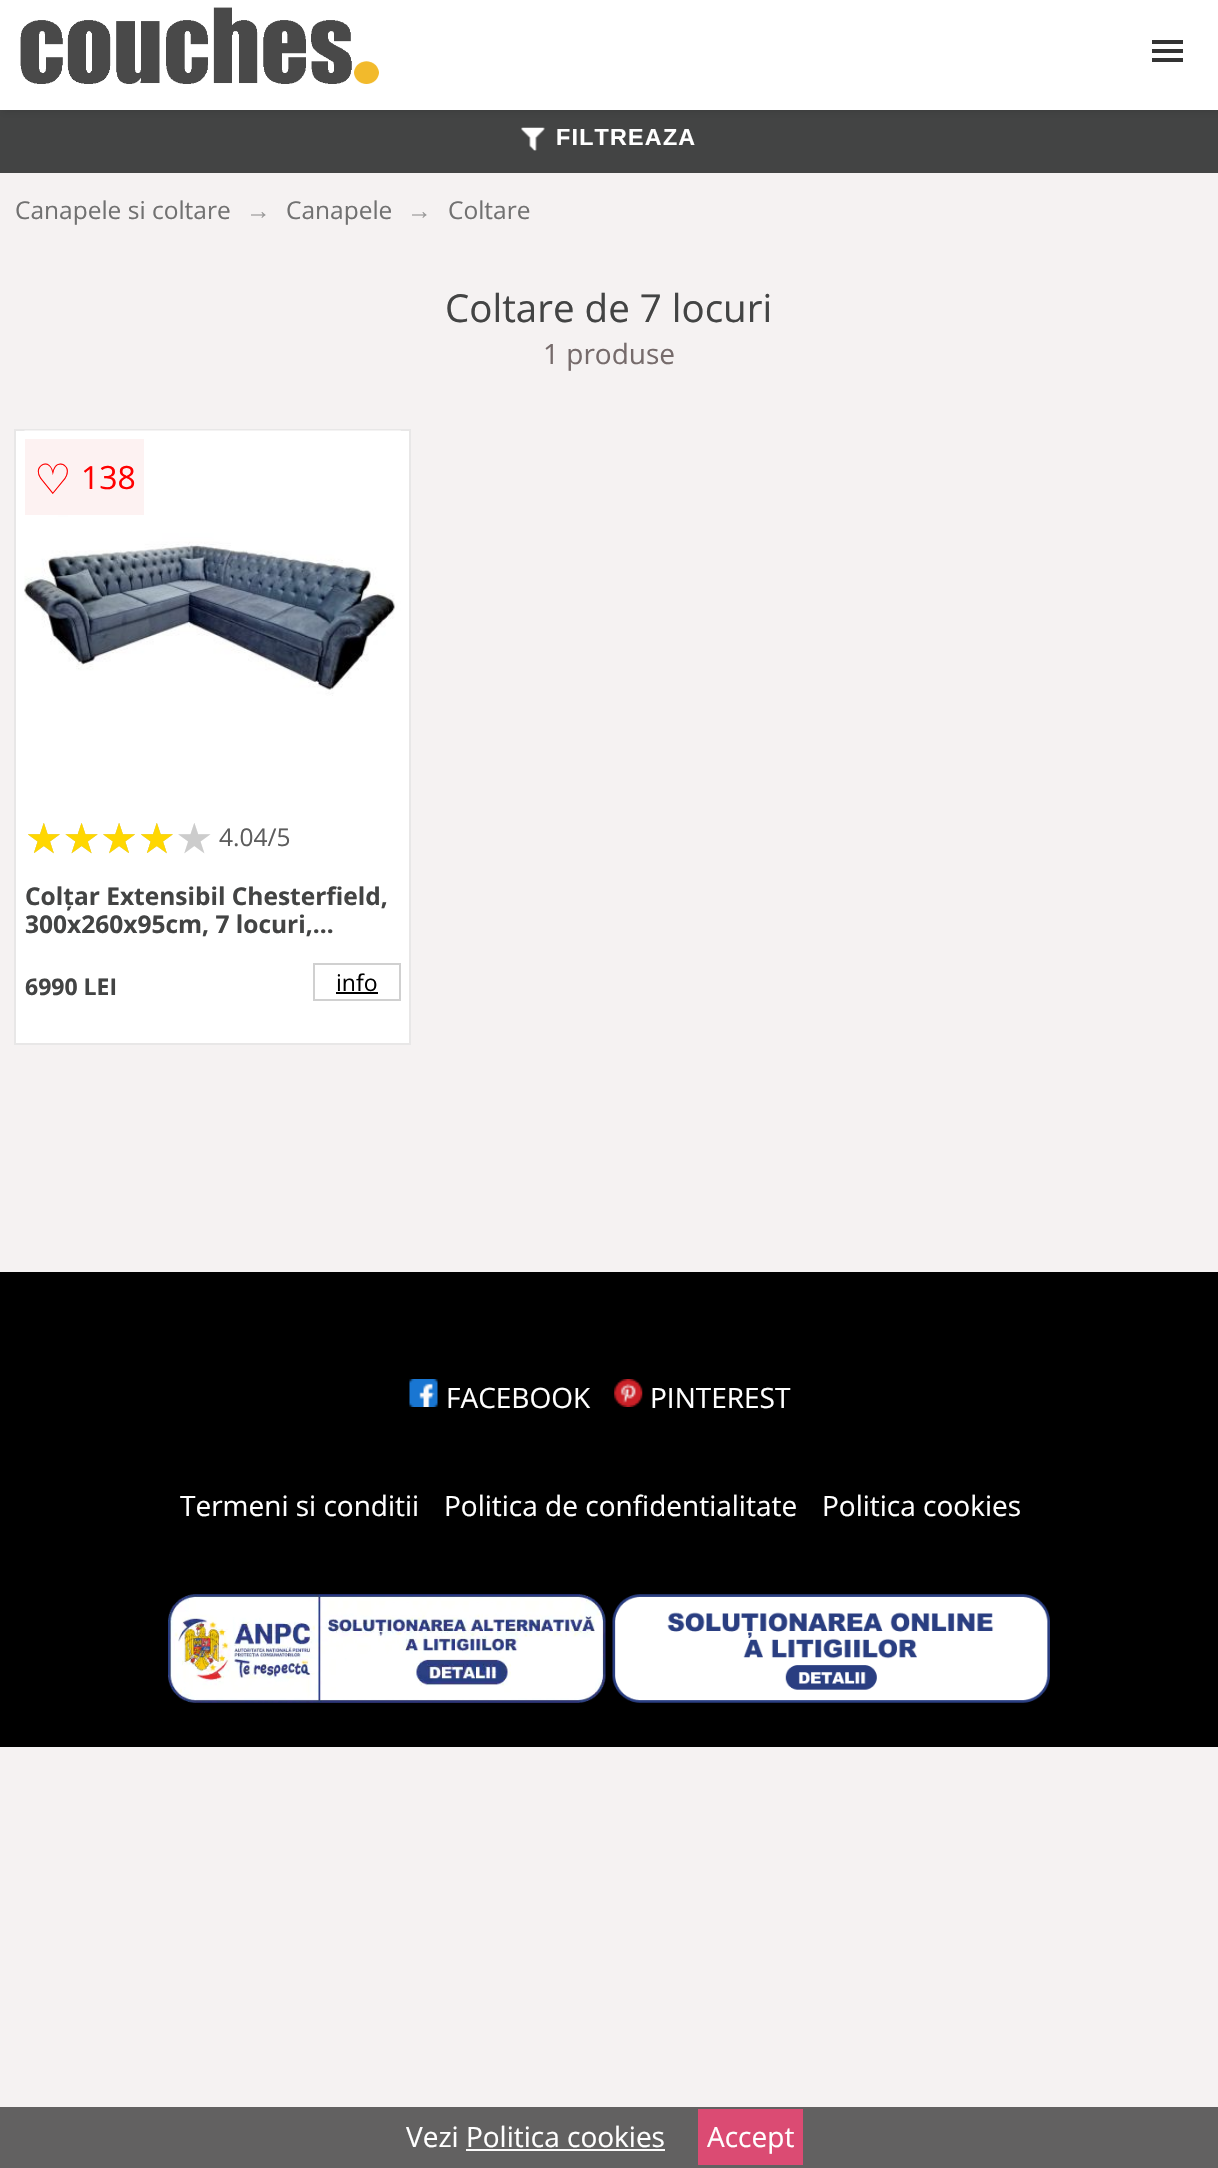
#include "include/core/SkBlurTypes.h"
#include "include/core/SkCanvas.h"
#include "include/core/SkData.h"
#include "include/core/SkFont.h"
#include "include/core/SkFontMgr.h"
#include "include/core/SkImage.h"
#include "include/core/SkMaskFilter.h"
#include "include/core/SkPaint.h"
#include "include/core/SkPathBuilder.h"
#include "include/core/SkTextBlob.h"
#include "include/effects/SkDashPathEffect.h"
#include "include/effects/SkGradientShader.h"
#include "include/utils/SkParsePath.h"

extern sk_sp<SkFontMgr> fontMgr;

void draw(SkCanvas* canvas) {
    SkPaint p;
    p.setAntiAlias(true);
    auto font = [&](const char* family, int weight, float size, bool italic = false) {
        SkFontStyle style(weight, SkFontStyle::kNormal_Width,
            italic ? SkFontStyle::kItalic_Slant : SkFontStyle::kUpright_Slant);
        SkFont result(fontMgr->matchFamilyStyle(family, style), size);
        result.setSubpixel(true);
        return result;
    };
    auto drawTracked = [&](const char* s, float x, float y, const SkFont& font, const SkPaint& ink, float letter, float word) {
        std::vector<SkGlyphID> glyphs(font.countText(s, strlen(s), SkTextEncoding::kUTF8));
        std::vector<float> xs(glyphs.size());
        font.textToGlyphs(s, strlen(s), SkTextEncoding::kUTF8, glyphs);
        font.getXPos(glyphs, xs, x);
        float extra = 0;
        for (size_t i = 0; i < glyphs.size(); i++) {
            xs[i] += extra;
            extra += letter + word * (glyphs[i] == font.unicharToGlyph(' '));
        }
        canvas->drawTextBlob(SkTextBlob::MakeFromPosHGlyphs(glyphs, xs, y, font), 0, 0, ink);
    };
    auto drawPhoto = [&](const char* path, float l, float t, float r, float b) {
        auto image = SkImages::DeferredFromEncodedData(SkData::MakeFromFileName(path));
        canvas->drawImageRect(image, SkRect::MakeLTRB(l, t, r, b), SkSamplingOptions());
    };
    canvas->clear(0xFFF5F2F2);
    p.setColor(0xFF434444);
    canvas->drawRect(SkRect::MakeLTRB(0, 110, 1218, 173), p);
    p.setColor(0x1A000000);
    p.setMaskFilter(SkMaskFilter::MakeBlur(kNormal_SkBlurStyle, 3.5f));
    canvas->drawRect(SkRect::MakeLTRB(2, 2, 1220, 112), p);
    p.setMaskFilter(nullptr);
    p.setColor(0xFFFFFFFF);
    canvas->drawRect(SkRect::MakeLTRB(0, 0, 1218, 110), p);
    drawPhoto("media/1.png", 20, 7, 379, 84);
    {
        const struct { float l, t, r, b; SkColor color; } items[] = {
            {1152, 49, 1183, 53, 0xFF333333},
            {1152, 40, 1183, 44, 0xFF333333},
            {1152, 58, 1183, 62, 0xFF333333},
        };
        for (auto [l, t, r, b, color] : items) {
            p.setColor(color);
            canvas->drawRect(SkRect::MakeLTRB(l, t, r, b), p);
        }
    }
    drawPhoto("media/2.png", 521, 127, 545, 151);
    auto font1 = font("Liberation Sans", 700, 23.25f);
    p.setColor(0xFFFFFFFF);
    drawTracked("FILTREAZA", 556, 145, font1, p, 1.25f, 0);
    auto font2 = font("Open Sans", 400, 24.5f);
    p.setColor(0xFF717171);
    canvas->drawString("Canapele si coltare", 15, 219, font2, p);
    auto font3 = font("Liberation Sans", 400, 24.5f);
    p.setColor(0xFF999999);
    canvas->drawString("→", 246, 219, font3, p);
    p.setColor(0xFF717171);
    canvas->drawString("Canapele", 286, 219, font2, p);
    p.setColor(0xFF999999);
    canvas->drawString("→", 407, 219, font3, p);
    p.setColor(0xFF717171);
    canvas->drawString("Coltare", 448, 219, font2, p);
    auto font4 = font("Open Sans", 400, 38.5f);
    p.setColor(0xFF434444);
    canvas->drawString("Coltare de 7 locuri", 445, 322, font4, p);
    auto font5 = font("Open Sans", 400, 28);
    p.setColor(0xFF766B6B);
    canvas->drawString("1 produse", 543, 364, font5, p);
    p.setColor(0xFFFFFFFF);
    canvas->drawRect(SkRect::MakeLTRB(15, 430, 410, 1044), p);
    p.setStyle(SkPaint::kStroke_Style);
    p.setStrokeWidth(2);
    p.setColor(0xFFE8E7E7);
    canvas->drawRect(SkRect::MakeLTRB(15, 430, 410, 1044), p);
    drawPhoto("media/3.png", 24, 430, 401, 696);
    p.setStyle(SkPaint::kFill_Style);
    p.setColor(0xFFFDF2F2);
    canvas->drawRect(SkRect::MakeLTRB(25, 439, 144, 515), p);
    auto font6 = font("DejaVu Sans", 400, 42);
    p.setColor(0xFFFF0000);
    canvas->drawString("♡", 34, 494, font6, p);
    auto font7 = font("Open Sans", 400, 32);
    canvas->drawString("138", 81, 489, font7, p);
    p.setColor(0xFFCCCCCC);
    canvas->drawString("★★★★★", 25, 853, font6, p);
    p.setColor(0xFFFFD700);
    canvas->drawString("★★★★", 25, 853, font6, p);
    p.setColor(0xFF5D5D5D);
    canvas->drawString("4.04/5", 219, 846, font2, p);
    auto font8 = font("Open Sans", 700, 24.5f);
    p.setColor(0xFF434444);
    canvas->drawString("Colțar Extensibil Chesterfield,", 25, 905, font8, p);
    canvas->drawString("300x260x95cm, 7 locuri,…", 25, 933, font8, p);
    auto font9 = font("Open Sans", 700, 23);
    canvas->drawString("6990 LEI", 25, 995, font9, p);
    p.setStyle(SkPaint::kStroke_Style);
    p.setColor(0xFFD0D0D0);
    canvas->drawRect(SkRect::MakeLTRB(314, 964, 400, 1000), p);
    auto font10 = font("Open Sans", 400, 23);
    p.setStyle(SkPaint::kFill_Style);
    p.setColor(0xFF000000);
    canvas->drawString("info", 336, 991, font10, p);
    canvas->drawRect(SkRect::MakeLTRB(336, 992, 378, 994), p);
    canvas->drawRect(SkRect::MakeLTRB(0, 1272, 1218, 1747), p);
    drawPhoto("media/4.png", 409, 1379, 438, 1407);
    p.setColor(0xFFFFFFFF);
    canvas->drawString("FACEBOOK", 446, 1408, font5, p);
    drawPhoto("media/5.png", 614, 1379, 643, 1407);
    {
        const struct { const char* s; float x, y; } items[] = {
            {"PINTEREST", 650, 1408},
            {"Termeni si conditii", 180, 1516},
            {"Politica de confidentialitate", 444, 1516},
            {"Politica cookies", 822, 1516},
        };
        for (auto [s, x, y] : items) {
            canvas->drawString(s, x, y, font5, p);
        }
    }
    drawPhoto("media/6.png", 168, 1594, 606, 1703);
    drawPhoto("media/7.png", 612, 1594, 1050, 1703);
    p.setColor(0xFF626161);
    canvas->drawRect(SkRect::MakeLTRB(0, 2107, 1218, 2168), p);
    p.setColor(0xFFFFFFFF);
    canvas->drawString("Vezi Politica cookies", 406, 2147, font5, p);
    p.setColor(0xFFFCFBFB);
    canvas->drawRect(SkRect::MakeLTRB(466, 2149, 665, 2151), p);
    p.setColor(0xFFDB4B73);
    canvas->drawRect(SkRect::MakeLTRB(698, 2109, 803, 2165), p);
    p.setColor(0xFFFFFFFF);
    canvas->drawString("Accept", 707, 2147, font5, p);
}
